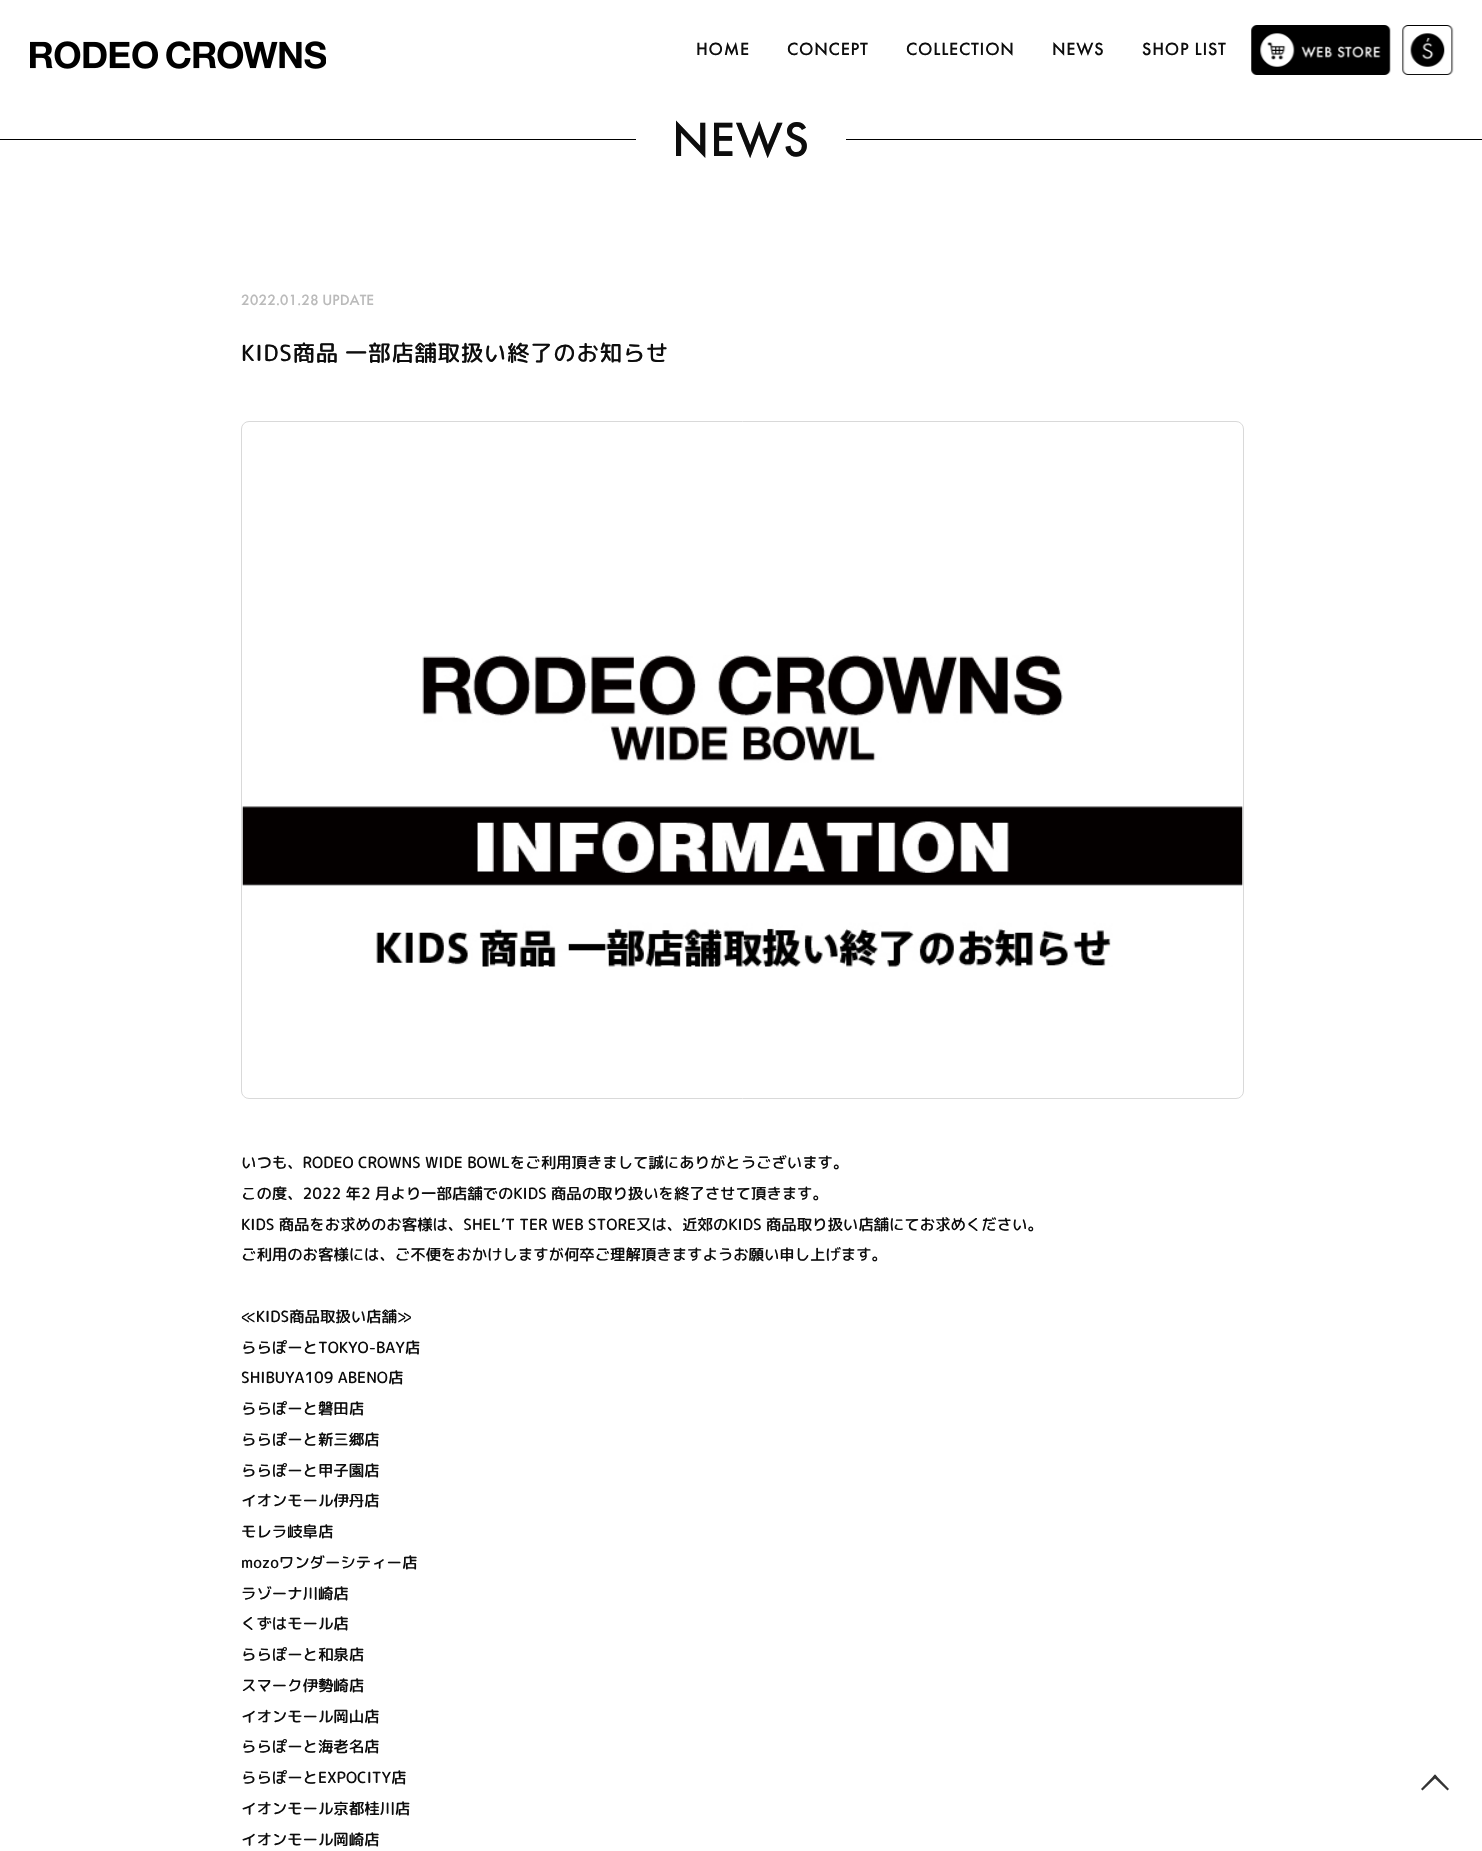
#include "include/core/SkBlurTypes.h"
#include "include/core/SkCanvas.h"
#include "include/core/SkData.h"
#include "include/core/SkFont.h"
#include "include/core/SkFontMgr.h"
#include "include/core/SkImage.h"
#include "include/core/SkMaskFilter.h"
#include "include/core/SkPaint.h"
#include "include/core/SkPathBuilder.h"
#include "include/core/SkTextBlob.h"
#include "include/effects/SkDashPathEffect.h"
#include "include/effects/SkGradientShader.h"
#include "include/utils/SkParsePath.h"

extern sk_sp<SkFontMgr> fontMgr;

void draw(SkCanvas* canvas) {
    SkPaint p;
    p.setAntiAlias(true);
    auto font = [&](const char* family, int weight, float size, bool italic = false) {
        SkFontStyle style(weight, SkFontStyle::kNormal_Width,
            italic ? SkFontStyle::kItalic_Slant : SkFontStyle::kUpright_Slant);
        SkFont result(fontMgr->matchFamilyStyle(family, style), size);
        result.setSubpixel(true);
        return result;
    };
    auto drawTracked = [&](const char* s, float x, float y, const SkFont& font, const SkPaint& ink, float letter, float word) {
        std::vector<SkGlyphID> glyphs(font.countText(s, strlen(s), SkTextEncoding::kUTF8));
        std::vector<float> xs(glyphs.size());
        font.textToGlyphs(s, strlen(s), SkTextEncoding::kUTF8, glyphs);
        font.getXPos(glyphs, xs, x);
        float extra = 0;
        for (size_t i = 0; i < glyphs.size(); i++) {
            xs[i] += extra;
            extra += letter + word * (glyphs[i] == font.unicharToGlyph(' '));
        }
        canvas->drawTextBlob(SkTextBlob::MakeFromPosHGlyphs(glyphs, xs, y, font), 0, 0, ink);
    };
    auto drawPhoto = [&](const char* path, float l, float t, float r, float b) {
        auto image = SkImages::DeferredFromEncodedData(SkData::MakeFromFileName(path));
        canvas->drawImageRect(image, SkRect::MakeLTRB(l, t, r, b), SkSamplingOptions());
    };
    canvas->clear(0xFFFFFFFF);
    drawPhoto("media/1.png", 30, 41, 326, 69);
    auto font1 = font("Futura PT", 500, 18.25f);
    p.setColor(0xFF0D0D0D);
    {
        const struct { const char* s; float x, y; } items[] = {
            {"HOME", 696, 55},
            {"CONCEPT", 787, 55},
            {"COLLECTION", 906, 55},
            {"NEWS", 1052, 55},
            {"SHOP LIST", 1142, 55},
        };
        for (auto [s, x, y] : items) {
            drawTracked(s, x, y, font1, p, 0.75f, 0);
        }
    }
    drawPhoto("media/2.png", 1251, 25, 1391, 75);
    drawPhoto("media/3.png", 1402, 25, 1454, 75);
    p.setColor(0xFF000000);
    canvas->drawRect(SkRect::MakeLTRB(0, 139, 636, 140), p);
    auto font2 = font("Futura PT", 500, 50);
    p.setColor(0xFF0D0D0D);
    drawTracked("NEWS", 672, 156, font2, p, 0.75f, 0);
    p.setColor(0xFF000000);
    canvas->drawRect(SkRect::MakeLTRB(846, 139, 1482, 140), p);
    auto font3 = font("Futura PT", 500, 15.38f);
    p.setColor(0xFFBABABA);
    canvas->drawString("2022.01.28 UPDATE", 241, 305, font3, p);
    auto font4 = font("Rounded Mplus 1c", 500, 22.4f);
    p.setColor(0xFF0D0D0D);
    drawTracked("KIDS商品 一部店舗取扱い終了のお知らせ", 241, 361, font4, p, 0.75f, -1);
    p.setStyle(SkPaint::kStroke_Style);
    p.setStrokeWidth(1);
    p.setColor(0xFFD9D9D9);
    canvas->drawRoundRect(SkRect::MakeLTRB(241.5f, 421.5f, 1243.5f, 1098.5f), 7.5f, 7.5f, p);
    drawPhoto("media/4.png", 242, 655, 1243, 967);
    auto font5 = font("Rounded Mplus 1c", 500, 15.38f);
    p.setStyle(SkPaint::kFill_Style);
    p.setColor(0xFF0D0D0D);
    {
        const struct { const char* s; float x, y; } items[] = {
            {"いつも、RODEO CROWNS WIDE BOWLをご利用頂きまして誠にありがとうございます。", 241, 1168},
            {"この度、2022 年2 月より一部店舗でのKIDS 商品の取り扱いを終了させて頂きます。", 241, 1199},
            {"KIDS 商品をお求めのお客様は、SHEL’T TER WEB STORE又は、近郊のKIDS 商品取り扱い店舗にてお求めください。", 241, 1230},
            {"ご利用のお客様には、ご不便をおかけしますが何卒ご理解頂きますようお願い申し上げます。", 241, 1260},
            {"≪KIDS商品取扱い店舗≫", 241, 1322},
            {"ららぽーとTOKYO-BAY店", 241, 1353},
            {"SHIBUYA109 ABENO店", 241, 1383},
            {"ららぽーと磐田店", 241, 1414},
            {"ららぽーと新三郷店", 241, 1445},
            {"ららぽーと甲子園店", 241, 1476},
            {"イオンモール伊丹店", 241, 1506},
            {"モレラ岐阜店", 241, 1537},
            {"mozoワンダーシティー店", 241, 1568},
            {"ラゾーナ川崎店", 241, 1599},
            {"くずはモール店", 241, 1629},
            {"ららぽーと和泉店", 241, 1660},
            {"スマーク伊勢崎店", 241, 1691},
            {"イオンモール岡山店", 241, 1722},
            {"ららぽーと海老名店", 241, 1752},
            {"ららぽーとEXPOCITY店", 241, 1783},
            {"イオンモール京都桂川店", 241, 1814},
            {"イオンモール岡崎店", 241, 1845},
        };
        for (auto [s, x, y] : items) {
            canvas->drawString(s, x, y, font5, p);
        }
    }
    p.setColor(0xFF333333);
    canvas->drawPath(SkPathBuilder().moveTo(1421, 1789).lineTo(1435, 1774.5f).lineTo(1437, 1776.5f).lineTo(1422.5f, 1790.5f).close().detach(), p);
    canvas->drawPath(SkPathBuilder().moveTo(1433, 1776.5f).lineTo(1435, 1774.5f).lineTo(1449, 1789).lineTo(1447.5f, 1790.5f).close().detach(), p);
}
